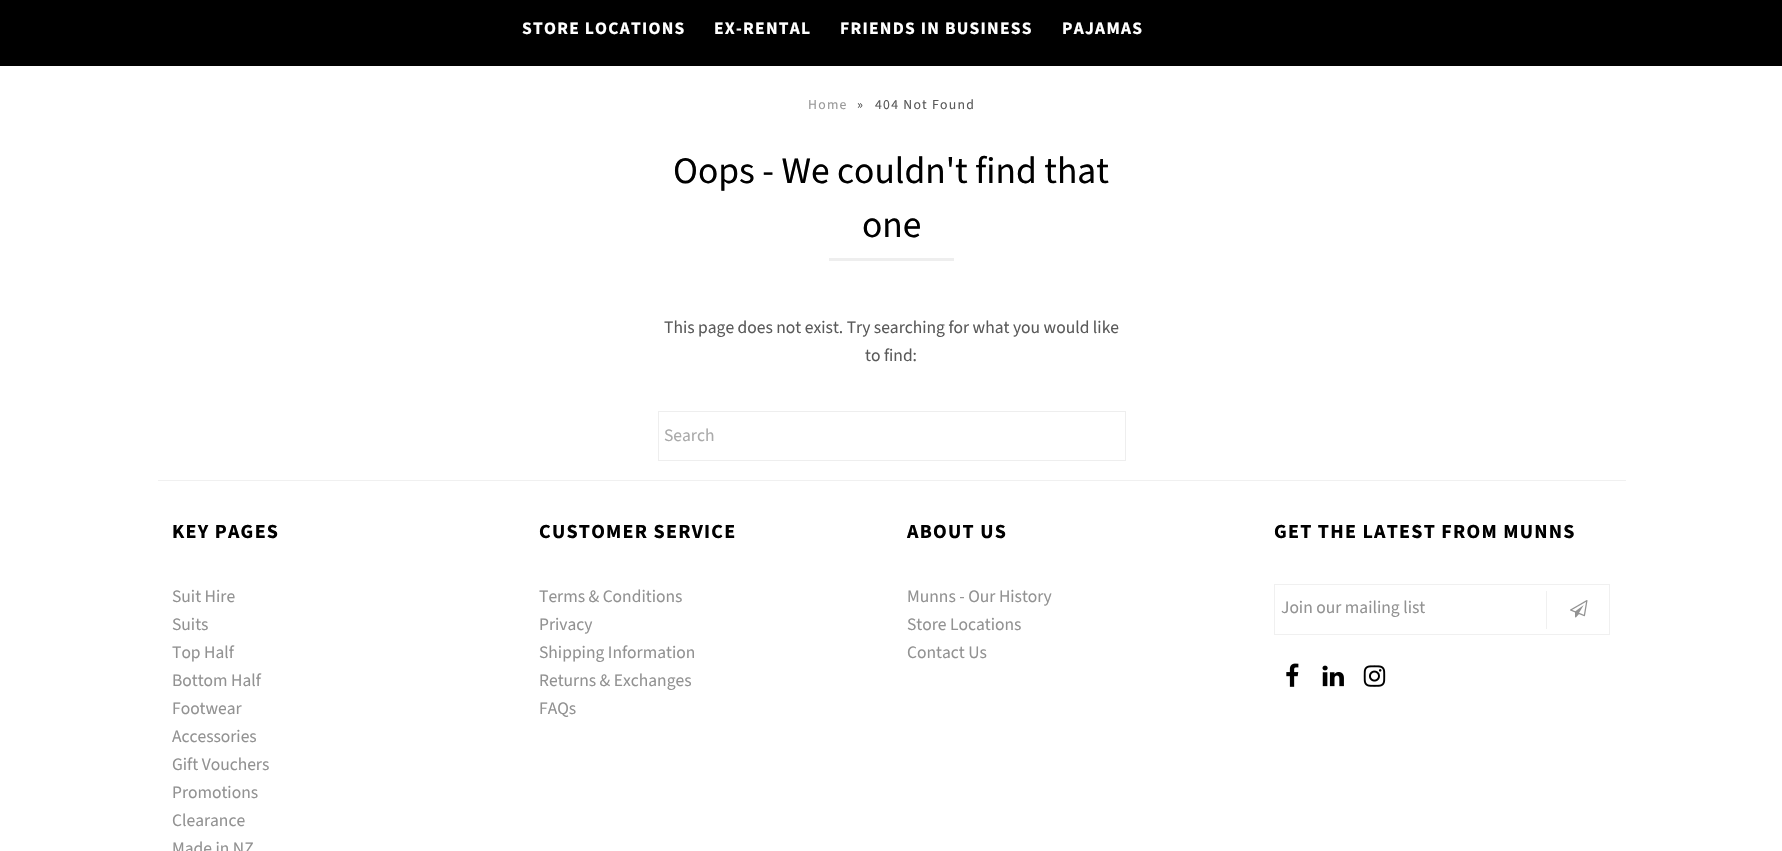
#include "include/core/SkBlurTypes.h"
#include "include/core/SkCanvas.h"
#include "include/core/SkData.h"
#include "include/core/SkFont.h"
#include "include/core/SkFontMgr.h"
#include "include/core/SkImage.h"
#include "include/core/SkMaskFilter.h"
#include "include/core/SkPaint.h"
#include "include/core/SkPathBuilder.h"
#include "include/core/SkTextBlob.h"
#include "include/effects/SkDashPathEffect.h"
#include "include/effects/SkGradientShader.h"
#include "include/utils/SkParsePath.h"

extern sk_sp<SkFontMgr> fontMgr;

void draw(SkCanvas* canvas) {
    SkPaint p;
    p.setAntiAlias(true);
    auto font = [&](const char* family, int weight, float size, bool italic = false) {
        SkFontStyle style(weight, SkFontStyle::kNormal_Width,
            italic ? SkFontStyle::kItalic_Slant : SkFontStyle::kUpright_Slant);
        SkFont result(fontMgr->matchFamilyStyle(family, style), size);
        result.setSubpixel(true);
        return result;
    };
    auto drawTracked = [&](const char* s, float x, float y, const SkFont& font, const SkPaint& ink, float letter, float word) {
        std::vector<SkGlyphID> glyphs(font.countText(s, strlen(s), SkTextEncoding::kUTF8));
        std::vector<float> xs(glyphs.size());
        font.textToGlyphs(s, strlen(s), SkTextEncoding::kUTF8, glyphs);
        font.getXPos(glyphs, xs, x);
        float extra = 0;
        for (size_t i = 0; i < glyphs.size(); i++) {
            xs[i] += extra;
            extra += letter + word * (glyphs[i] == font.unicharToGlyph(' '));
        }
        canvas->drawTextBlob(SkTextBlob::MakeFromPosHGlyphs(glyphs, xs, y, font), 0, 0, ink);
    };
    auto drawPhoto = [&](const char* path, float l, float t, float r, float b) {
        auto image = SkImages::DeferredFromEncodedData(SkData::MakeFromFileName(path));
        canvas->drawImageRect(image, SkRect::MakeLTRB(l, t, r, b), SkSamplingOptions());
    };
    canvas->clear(0xFFFFFFFF);
    p.setColor(0xFF000000);
    canvas->drawRect(SkRect::MakeLTRB(0, 0, 1782, 66), p);
    auto font1 = font("Source Sans Pro", 700, 17.5f);
    p.setColor(0xFFFFFFFF);
    {
        const struct { const char* s; float x, y; } items[] = {
            {"STORE LOCATIONS", 522, 34},
            {"EX-RENTAL", 714, 34},
            {"FRIENDS IN BUSINESS", 840, 34},
            {"PAJAMAS", 1062, 34},
        };
        for (auto [s, x, y] : items) {
            drawTracked(s, x, y, font1, p, 1.25f, 0);
        }
    }
    auto font2 = font("Source Sans Pro", 400, 13.75f);
    p.setColor(0xFF999999);
    drawTracked("Home", 808, 109, font2, p, 1.25f, 0);
    p.setColor(0xFF5A5A5A);
    drawTracked("»", 857, 109, font2, p, 1.25f, 0);
    drawTracked("404 Not Found", 875, 109, font2, p, 1.25f, 0);
    auto font3 = font("Source Sans Pro", 400, 37.5f);
    p.setColor(0xFF000000);
    canvas->drawString("Oops - We couldn't find that", 673, 183, font3, p);
    canvas->drawString("one", 862, 237, font3, p);
    p.setColor(0xFFEEEEEE);
    canvas->drawRect(SkRect::MakeLTRB(829, 258, 954, 261), p);
    auto font4 = font("Source Sans Pro", 400, 17.5f);
    p.setColor(0xFF5A5A5A);
    canvas->drawString("This page does not exist. Try searching for what you would like", 664, 333, font4, p);
    canvas->drawString("to find:", 865, 361, font4, p);
    p.setStyle(SkPaint::kStroke_Style);
    p.setStrokeWidth(1);
    p.setColor(0xFFEEEEEE);
    canvas->drawRect(SkRect::MakeLTRB(658.5f, 411.5f, 1125.5f, 460.5f), p);
    p.setStyle(SkPaint::kFill_Style);
    p.setColor(0xFFAAAAAA);
    canvas->drawString("Search", 664, 441, font4, p);
    p.setColor(0xFFF0F0F0);
    canvas->drawRect(SkRect::MakeLTRB(158, 480, 1626, 481), p);
    auto font5 = font("Source Sans Pro", 700, 20);
    p.setColor(0xFF000000);
    drawTracked("KEY PAGES", 172, 538, font5, p, 1.25f, 0);
    p.setColor(0xFF929292);
    {
        const struct { const char* s; float x, y; } items[] = {
            {"Suit Hire", 172, 602},
            {"Suits", 172, 630},
            {"Top Half", 172, 658},
            {"Bottom Half", 172, 686},
            {"Footwear", 172, 714},
            {"Accessories", 172, 742},
            {"Gift Vouchers", 172, 770},
            {"Promotions", 172, 798},
            {"Clearance", 172, 826},
            {"Made in NZ", 172, 854},
        };
        for (auto [s, x, y] : items) {
            canvas->drawString(s, x, y, font4, p);
        }
    }
    p.setColor(0xFF000000);
    drawTracked("CUSTOMER SERVICE", 539, 538, font5, p, 1.25f, 0);
    p.setColor(0xFF929292);
    {
        const struct { const char* s; float x, y; } items[] = {
            {"Terms & Conditions", 539, 602},
            {"Privacy", 539, 630},
            {"Shipping Information", 539, 658},
            {"Returns & Exchanges", 539, 686},
            {"FAQs", 539, 714},
        };
        for (auto [s, x, y] : items) {
            canvas->drawString(s, x, y, font4, p);
        }
    }
    p.setColor(0xFF000000);
    drawTracked("ABOUT US", 907, 538, font5, p, 1.25f, 0);
    p.setColor(0xFF929292);
    {
        const struct { const char* s; float x, y; } items[] = {
            {"Munns - Our History", 907, 602},
            {"Store Locations", 907, 630},
            {"Contact Us", 907, 658},
        };
        for (auto [s, x, y] : items) {
            canvas->drawString(s, x, y, font4, p);
        }
    }
    p.setColor(0xFF000000);
    drawTracked("GET THE LATEST FROM MUNNS", 1274, 538, font5, p, 1.25f, 0);
    p.setStyle(SkPaint::kStroke_Style);
    p.setColor(0xFFF0F0F0);
    canvas->drawRect(SkRect::MakeLTRB(1274.5f, 584.5f, 1609.5f, 634.5f), p);
    p.setStyle(SkPaint::kFill_Style);
    p.setColor(0xFF929292);
    canvas->drawString("Join our mailing list", 1281, 613, font4, p);
    p.setColor(0xFFF0F0F0);
    canvas->drawRect(SkRect::MakeLTRB(1546, 591, 1547, 629), p);
    drawPhoto("media/1.png", 1570, 600, 1588, 618);
    drawPhoto("media/2.png", 1286, 663, 1299, 687);
    drawPhoto("media/3.png", 1322, 665, 1344, 687);
    drawPhoto("media/4.png", 1363, 665, 1386, 687);
}
